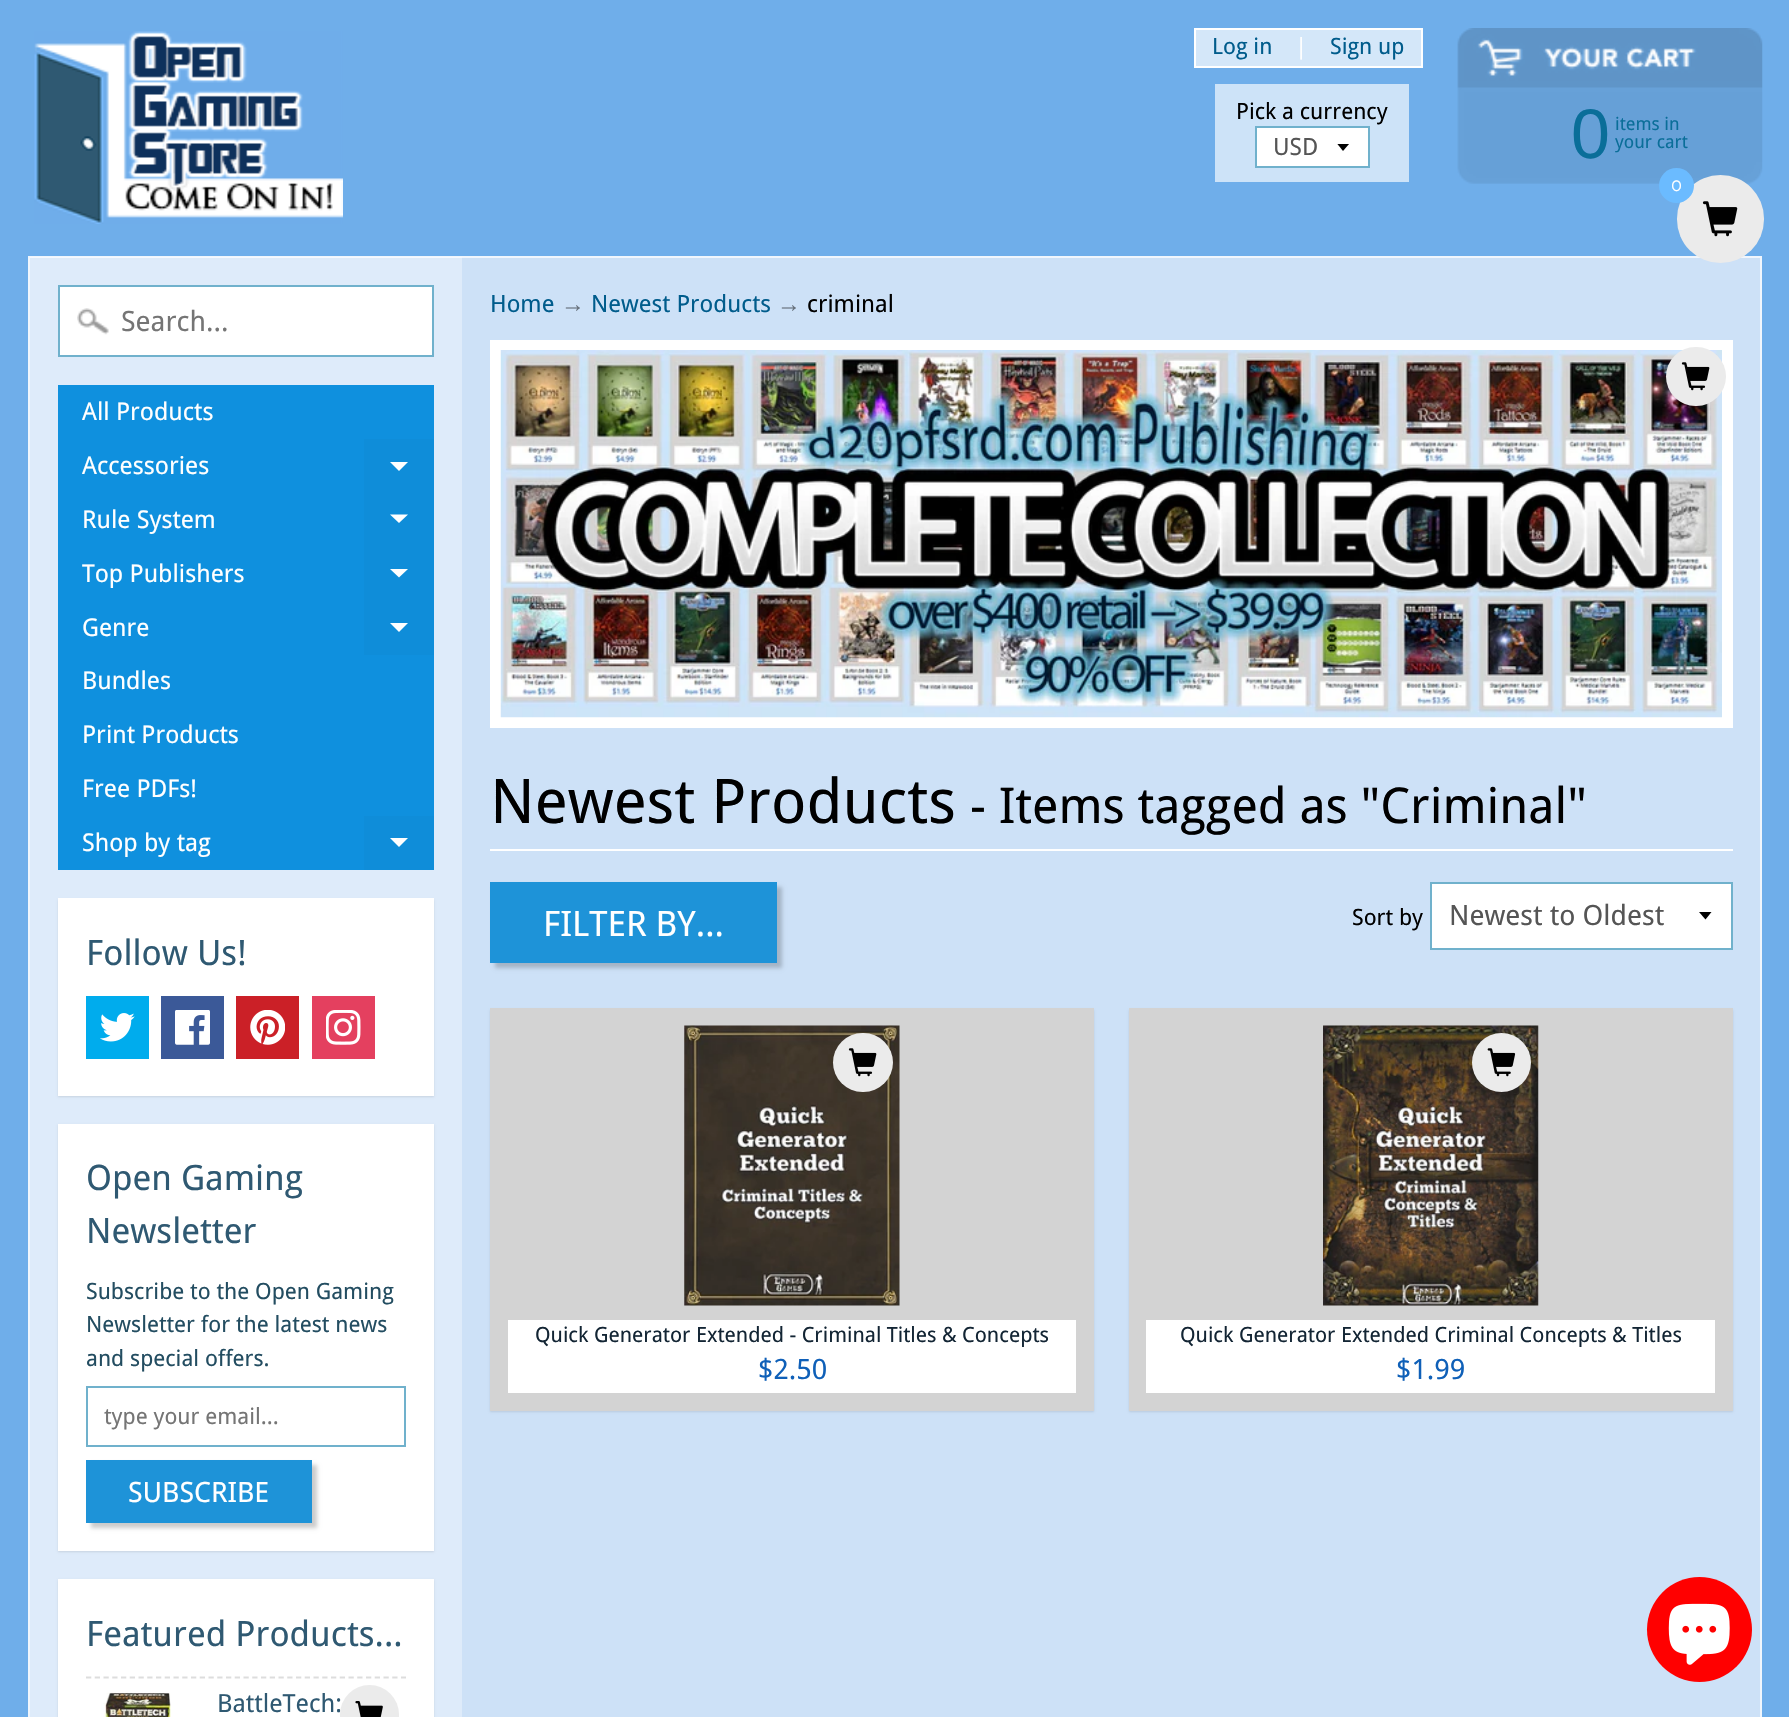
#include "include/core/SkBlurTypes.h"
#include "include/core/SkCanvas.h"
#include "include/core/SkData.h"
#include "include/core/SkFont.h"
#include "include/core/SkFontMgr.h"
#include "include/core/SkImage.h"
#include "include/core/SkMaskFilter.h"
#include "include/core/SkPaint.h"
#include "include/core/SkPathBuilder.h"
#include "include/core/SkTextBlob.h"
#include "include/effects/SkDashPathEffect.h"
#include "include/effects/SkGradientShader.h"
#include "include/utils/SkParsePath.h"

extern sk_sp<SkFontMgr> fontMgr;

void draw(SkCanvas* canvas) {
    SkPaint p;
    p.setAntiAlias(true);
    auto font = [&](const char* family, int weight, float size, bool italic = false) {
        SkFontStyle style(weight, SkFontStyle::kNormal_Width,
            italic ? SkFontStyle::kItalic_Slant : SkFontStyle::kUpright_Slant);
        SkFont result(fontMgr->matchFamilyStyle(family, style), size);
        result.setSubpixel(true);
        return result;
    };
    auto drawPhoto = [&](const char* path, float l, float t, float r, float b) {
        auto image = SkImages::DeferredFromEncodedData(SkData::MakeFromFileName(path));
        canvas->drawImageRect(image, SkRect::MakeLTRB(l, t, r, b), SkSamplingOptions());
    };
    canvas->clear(0xFF6FAEEA);
    drawPhoto("media/1.png", 34, 31, 343, 224);
    p.setColor(0xFFD4E7F9);
    canvas->drawRect(SkRect::MakeLTRB(1195, 29, 1422, 67), p);
    p.setStyle(SkPaint::kStroke_Style);
    p.setStrokeWidth(2);
    p.setColor(0xFFFFFFFF);
    canvas->drawRect(SkRect::MakeLTRB(1195, 29, 1422, 67), p);
    auto font1 = font("Droid Sans", 400, 22.4f);
    p.setStyle(SkPaint::kFill_Style);
    p.setColor(0xFF005C8C);
    canvas->drawString("Log in", 1212, 54, font1, p);
    p.setColor(0xFFFFFFFF);
    canvas->drawString("|", 1295, 54, font1, p);
    p.setColor(0xFF005C8C);
    canvas->drawString("Sign up", 1330, 54, font1, p);
    drawPhoto("media/2.png", 1457, 28, 1763, 184);
    auto font2 = font("Liberation Sans", 400, 70);
    p.setColor(0xFF0A6E99);
    canvas->drawString("0", 1571, 158, font2, p);
    auto font3 = font("Droid Sans", 400, 18);
    canvas->drawString("items in", 1615, 130, font3, p);
    canvas->drawString("your cart", 1615, 148, font3, p);
    p.setColor(0xFFCDE3F8);
    canvas->drawRect(SkRect::MakeLTRB(1215, 84, 1409, 182), p);
    p.setColor(0xFF000000);
    canvas->drawString("Pick a currency", 1236, 119, font1, p);
    p.setColor(0xFFFFFFFF);
    canvas->drawRect(SkRect::MakeLTRB(1257, 128, 1368, 166), p);
    canvas->save();
    canvas->clipRect(SkRect::MakeLTRB(1337, 144, 1351, 152));
    p.setColor(0xFF000000);
    canvas->drawPath(SkPathBuilder().moveTo(1337, 143.5f).lineTo(1343, 151).lineTo(1349.5f, 143.5f).close().detach(), p);
    canvas->restore();
    p.setStyle(SkPaint::kStroke_Style);
    p.setColor(0xFF70B1CC);
    canvas->drawRect(SkRect::MakeLTRB(1256, 127, 1369, 167), p);
    auto font4 = font("Droid Sans", 400, 23.75f);
    p.setStyle(SkPaint::kFill_Style);
    p.setColor(0xFF555555);
    canvas->drawString("USD", 1273, 155, font4, p);
    p.setColor(0xFFCDE1F7);
    canvas->drawRect(SkRect::MakeLTRB(29, 257, 1761, 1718), p);
    p.setStyle(SkPaint::kStroke_Style);
    p.setColor(0xFFF0F6FD);
    canvas->drawRect(SkRect::MakeLTRB(29, 257, 1761, 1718), p);
    p.setStyle(SkPaint::kFill_Style);
    p.setColor(0x59FFFFFF);
    canvas->drawRect(SkRect::MakeLTRB(30, 257, 462, 1717), p);
    p.setColor(0xFFFFFFFF);
    canvas->drawRect(SkRect::MakeLTRB(60, 287, 432, 355), p);
    drawPhoto("media/3.png", 77, 308, 109, 335);
    p.setStyle(SkPaint::kStroke_Style);
    p.setColor(0xFF70B1CC);
    canvas->drawRect(SkRect::MakeLTRB(59, 286, 433, 356), p);
    auto font5 = font("Droid Sans", 400, 28);
    p.setStyle(SkPaint::kFill_Style);
    p.setColor(0xFF757575);
    canvas->drawString("Search...", 121, 331, font5, p);
    p.setColor(0xFF0F90DE);
    canvas->drawRect(SkRect::MakeLTRB(58, 385, 434, 439), p);
    auto font6 = font("Droid Sans", 400, 24.5f);
    p.setColor(0xFFFFFFFF);
    canvas->drawString("All Products", 82, 420, font6, p);
    p.setColor(0xFF0F90DE);
    canvas->drawRect(SkRect::MakeLTRB(58, 439, 364, 655), p);
    p.setColor(0xFFFFFFFF);
    canvas->drawString("Accessories", 82, 474, font6, p);
    p.setColor(0xFF0F8DD9);
    canvas->drawRect(SkRect::MakeLTRB(364, 439, 434, 655), p);
    p.setColor(0xFFFFFFFF);
    canvas->drawPath(SkPathBuilder().moveTo(390, 462).lineTo(408, 462).lineTo(399, 471).close().detach(), p);
    canvas->drawString("Rule System", 82, 528, font6, p);
    canvas->drawPath(SkPathBuilder().moveTo(390, 514.5f).lineTo(408, 514.5f).lineTo(399, 523).close().detach(), p);
    canvas->drawString("Top Publishers", 82, 582, font6, p);
    canvas->drawPath(SkPathBuilder().moveTo(390, 569).lineTo(408, 569).lineTo(399, 577.5f).close().detach(), p);
    canvas->drawString("Genre", 82, 636, font6, p);
    canvas->drawPath(SkPathBuilder().moveTo(390, 623).lineTo(408, 623).lineTo(399, 632).close().detach(), p);
    p.setColor(0xFF0F90DE);
    canvas->drawRect(SkRect::MakeLTRB(58, 655, 434, 816), p);
    p.setColor(0xFFFFFFFF);
    {
        const struct { const char* s; float x, y; } items[] = {
            {"Bundles", 82, 689},
            {"Print Products", 82, 743},
            {"Free PDFs!", 82, 797},
        };
        for (auto [s, x, y] : items) {
            canvas->drawString(s, x, y, font6, p);
        }
    }
    p.setColor(0xFF0F90DE);
    canvas->drawRect(SkRect::MakeLTRB(58, 816, 364, 870), p);
    p.setColor(0xFFFFFFFF);
    canvas->drawString("Shop by tag", 82, 851, font6, p);
    p.setColor(0xFF0F8DD9);
    canvas->drawRect(SkRect::MakeLTRB(364, 816, 434, 870), p);
    p.setColor(0xFFFFFFFF);
    canvas->drawPath(SkPathBuilder().moveTo(390, 838).lineTo(408, 838).lineTo(399, 847).close().detach(), p);
    p.setColor(0x1A000000);
    p.setMaskFilter(SkMaskFilter::MakeBlur(kNormal_SkBlurStyle, 1));
    canvas->drawRect(SkRect::MakeLTRB(58, 900, 434, 1097), p);
    p.setMaskFilter(nullptr);
    p.setColor(0xFFFFFFFF);
    canvas->drawRect(SkRect::MakeLTRB(58, 898, 434, 1096), p);
    auto font7 = font("Droid Sans", 400, 35);
    p.setColor(0xFF2F5972);
    canvas->drawString("Follow Us!", 86, 965, font7, p);
    p.setColor(0xFF00ACED);
    canvas->drawRect(SkRect::MakeLTRB(86, 996, 149, 1059), p);
    drawPhoto("media/4.png", 100, 1013, 135, 1042);
    p.setColor(0xFF3B5998);
    canvas->drawRect(SkRect::MakeLTRB(161, 996, 224, 1059), p);
    drawPhoto("media/5.png", 175, 1010, 210, 1045);
    p.setColor(0xFFCB2027);
    canvas->drawRect(SkRect::MakeLTRB(236, 996, 299, 1059), p);
    drawPhoto("media/6.png", 250, 1010, 285, 1045);
    p.setColor(0xFFE4405F);
    canvas->drawRect(SkRect::MakeLTRB(312, 996, 375, 1059), p);
    drawPhoto("media/7.png", 326, 1010, 361, 1045);
    p.setColor(0x1A000000);
    p.setMaskFilter(SkMaskFilter::MakeBlur(kNormal_SkBlurStyle, 1));
    canvas->drawRect(SkRect::MakeLTRB(58, 1125, 434, 1552), p);
    p.setMaskFilter(nullptr);
    p.setColor(0xFFFFFFFF);
    canvas->drawRect(SkRect::MakeLTRB(58, 1124, 434, 1551), p);
    p.setColor(0xFF2F5972);
    canvas->drawString("Open Gaming", 86, 1190, font7, p);
    canvas->drawString("Newsletter", 86, 1243, font7, p);
    p.setColor(0xFF234D61);
    {
        const struct { const char* s; float x, y; } items[] = {
            {"Subscribe to the Open Gaming", 86, 1299},
            {"Newsletter for the latest news", 86, 1332},
            {"and special offers.", 86, 1366},
        };
        for (auto [s, x, y] : items) {
            canvas->drawString(s, x, y, font1, p);
        }
    }
    p.setStyle(SkPaint::kStroke_Style);
    p.setColor(0xFF70B1CC);
    canvas->drawRect(SkRect::MakeLTRB(87, 1387, 405, 1446), p);
    p.setStyle(SkPaint::kFill_Style);
    p.setColor(0xFF757575);
    canvas->drawString("type your email...", 104, 1424, font1, p);
    p.setColor(0x33000000);
    p.setMaskFilter(SkMaskFilter::MakeBlur(kNormal_SkBlurStyle, 2));
    canvas->drawRect(SkRect::MakeLTRB(91, 1465, 317, 1528), p);
    p.setMaskFilter(nullptr);
    p.setColor(0xFF1E93D8);
    canvas->drawRect(SkRect::MakeLTRB(86, 1460, 312, 1523), p);
    p.setColor(0xFFFFFFFF);
    canvas->drawString("SUBSCRIBE", 128, 1502, font5, p);
    p.setColor(0x1A000000);
    p.setMaskFilter(SkMaskFilter::MakeBlur(kNormal_SkBlurStyle, 1));
    canvas->drawRect(SkRect::MakeLTRB(58, 1580, 434, 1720), p);
    p.setMaskFilter(nullptr);
    p.setColor(0xFFFFFFFF);
    canvas->drawRect(SkRect::MakeLTRB(58, 1579, 434, 1717), p);
    p.setColor(0xFF2F5972);
    canvas->drawString("Featured Products...", 86, 1646, font7, p);
    p.setStyle(SkPaint::kStroke_Style);
    p.setStrokeWidth(1.8f);
    p.setColor(0xFFDDDDDD);
    p.setPathEffect(SkDashPathEffect::Make({{5.25f, 3.5f}}, 0));
    canvas->drawPath(SkPathBuilder().moveTo(86, 1677.5f).lineTo(406, 1677.5f).detach(), p);
    p.setPathEffect(nullptr);
    drawPhoto("media/8.png", 101, 1692, 171, 1717);
    auto font8 = font("Droid Sans", 400, 25);
    p.setStyle(SkPaint::kFill_Style);
    p.setColor(0xFF2F5972);
    canvas->drawString("BattleTech:", 217, 1712, font8, p);
    p.setColor(0xFFEBEBEB);
    canvas->drawRoundRect(SkRect::MakeLTRB(340, 1685, 399, 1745), 29.5f, 29.5f, p);
    drawPhoto("media/9.png", 355, 1701, 383, 1717);
    p.setColor(0xFF005C8C);
    canvas->drawString("Home", 490, 312, font4, p);
    auto font9 = font("Liberation Sans", 400, 23.75f);
    p.setColor(0xFF67717C);
    canvas->drawString("→", 561, 312, font9, p);
    p.setColor(0xFF005C8C);
    canvas->drawString("Newest Products", 591, 312, font4, p);
    p.setColor(0xFF67717C);
    canvas->drawString("→", 777, 312, font9, p);
    p.setColor(0xFF000000);
    canvas->drawString("criminal", 807, 312, font4, p);
    p.setColor(0xFFFFFFFF);
    canvas->drawRect(SkRect::MakeLTRB(490, 340, 1733, 728), p);
    drawPhoto("media/11.png", 500, 350, 1722, 718);
    p.setColor(0xFFEBEBEB);
    canvas->drawRoundRect(SkRect::MakeLTRB(1666, 347, 1726, 406), 29.5f, 29.5f, p);
    drawPhoto("media/10.png", 1681, 362, 1710, 391);
    p.setColor(0xFFFFFFFF);
    canvas->drawRect(SkRect::MakeLTRB(490, 849, 1733, 851), p);
    auto font10 = font("Droid Sans", 400, 61.5f);
    p.setColor(0xFF000000);
    canvas->drawString("Newest Products", 490, 823, font10, p);
    auto font11 = font("Droid Sans", 400, 49.25f);
    canvas->drawString("- Items tagged as \"Criminal\"", 970, 823, font11, p);
    p.setColor(0x33000000);
    p.setMaskFilter(SkMaskFilter::MakeBlur(kNormal_SkBlurStyle, 2));
    canvas->drawRect(SkRect::MakeLTRB(495, 887, 782, 968), p);
    p.setMaskFilter(nullptr);
    p.setColor(0xFF1E93D8);
    canvas->drawRect(SkRect::MakeLTRB(490, 882, 777, 963), p);
    p.setColor(0xFFFFFFFF);
    canvas->drawString("FILTER BY...", 543, 936, font7, p);
    p.setColor(0xFF000000);
    canvas->drawString("Sort by", 1352, 925, font1, p);
    p.setColor(0xFFFFFFFF);
    canvas->drawRect(SkRect::MakeLTRB(1432, 884, 1731, 948), p);
    p.setColor(0xFF000000);
    canvas->drawPath(SkPathBuilder().moveTo(1699, 912).lineTo(1705.5f, 919.5f).lineTo(1711.5f, 912).close().detach(), p);
    p.setStyle(SkPaint::kStroke_Style);
    p.setStrokeWidth(2);
    p.setColor(0xFF70B1CC);
    canvas->drawRect(SkRect::MakeLTRB(1431, 883, 1732, 949), p);
    p.setStyle(SkPaint::kFill_Style);
    p.setColor(0xFF555555);
    canvas->drawString("Newest to Oldest", 1449, 925, font5, p);
    p.setColor(0x1A000000);
    p.setMaskFilter(SkMaskFilter::MakeBlur(kNormal_SkBlurStyle, 1));
    canvas->drawRect(SkRect::MakeLTRB(490, 1010, 1094, 1412), p);
    p.setMaskFilter(nullptr);
    p.setColor(0xFFD3D3D3);
    canvas->drawRect(SkRect::MakeLTRB(490, 1008, 1094, 1411), p);
    drawPhoto("media/12.png", 684, 1025, 900, 1306);
    p.setColor(0xFFEBEBEB);
    canvas->drawRoundRect(SkRect::MakeLTRB(833, 1033, 893, 1092), 29.5f, 29.5f, p);
    drawPhoto("media/10.png", 848, 1048, 877, 1077);
    p.setColor(0xFFFFFFFF);
    canvas->drawRect(SkRect::MakeLTRB(508, 1320, 1076, 1393), p);
    auto font12 = font("Droid Sans", 400, 21);
    p.setColor(0xFF132534);
    canvas->drawString("Quick Generator Extended - Criminal Titles & Concepts", 535, 1342, font12, p);
    p.setColor(0xFF0F60B8);
    canvas->drawString("$2.50", 758, 1379, font5, p);
    p.setColor(0x1A000000);
    p.setMaskFilter(SkMaskFilter::MakeBlur(kNormal_SkBlurStyle, 1));
    canvas->drawRect(SkRect::MakeLTRB(1129, 1010, 1733, 1412), p);
    p.setMaskFilter(nullptr);
    p.setColor(0xFFD3D3D3);
    canvas->drawRect(SkRect::MakeLTRB(1129, 1008, 1733, 1411), p);
    drawPhoto("media/13.png", 1323, 1025, 1539, 1306);
    p.setColor(0xFFEBEBEB);
    canvas->drawCircle(1501.5f, 1062.5f, 29.5f, p);
    drawPhoto("media/14.png", 1487, 1048, 1516, 1077);
    p.setColor(0xFFFFFFFF);
    canvas->drawRect(SkRect::MakeLTRB(1146, 1320, 1715, 1393), p);
    p.setColor(0xFF132534);
    canvas->drawString("Quick Generator Extended Criminal Concepts & Titles", 1180, 1342, font12, p);
    p.setColor(0xFF0F60B8);
    canvas->drawString("$1.99", 1396, 1379, font5, p);
    p.setColor(0xFFEBEBEB);
    canvas->drawRoundRect(SkRect::MakeLTRB(1677, 175, 1764, 263), 43.5f, 43.5f, p);
    p.setColor(0xFF6BBBFF);
    canvas->drawCircle(1676.5f, 185.5f, 17.5f, p);
    auto font13 = font("Raleway", 100, 18);
    p.setColor(0xFFFFFFFF);
    canvas->drawString("0", 1671, 191, font13, p);
    drawPhoto("media/15.png", 1702, 201, 1738, 237);
    p.setColor(0xFFFF0000);
    canvas->drawCircle(1699.5f, 1629.5f, 52.5f, p);
    drawPhoto("media/16.png", 1668, 1603, 1730, 1665);
}
